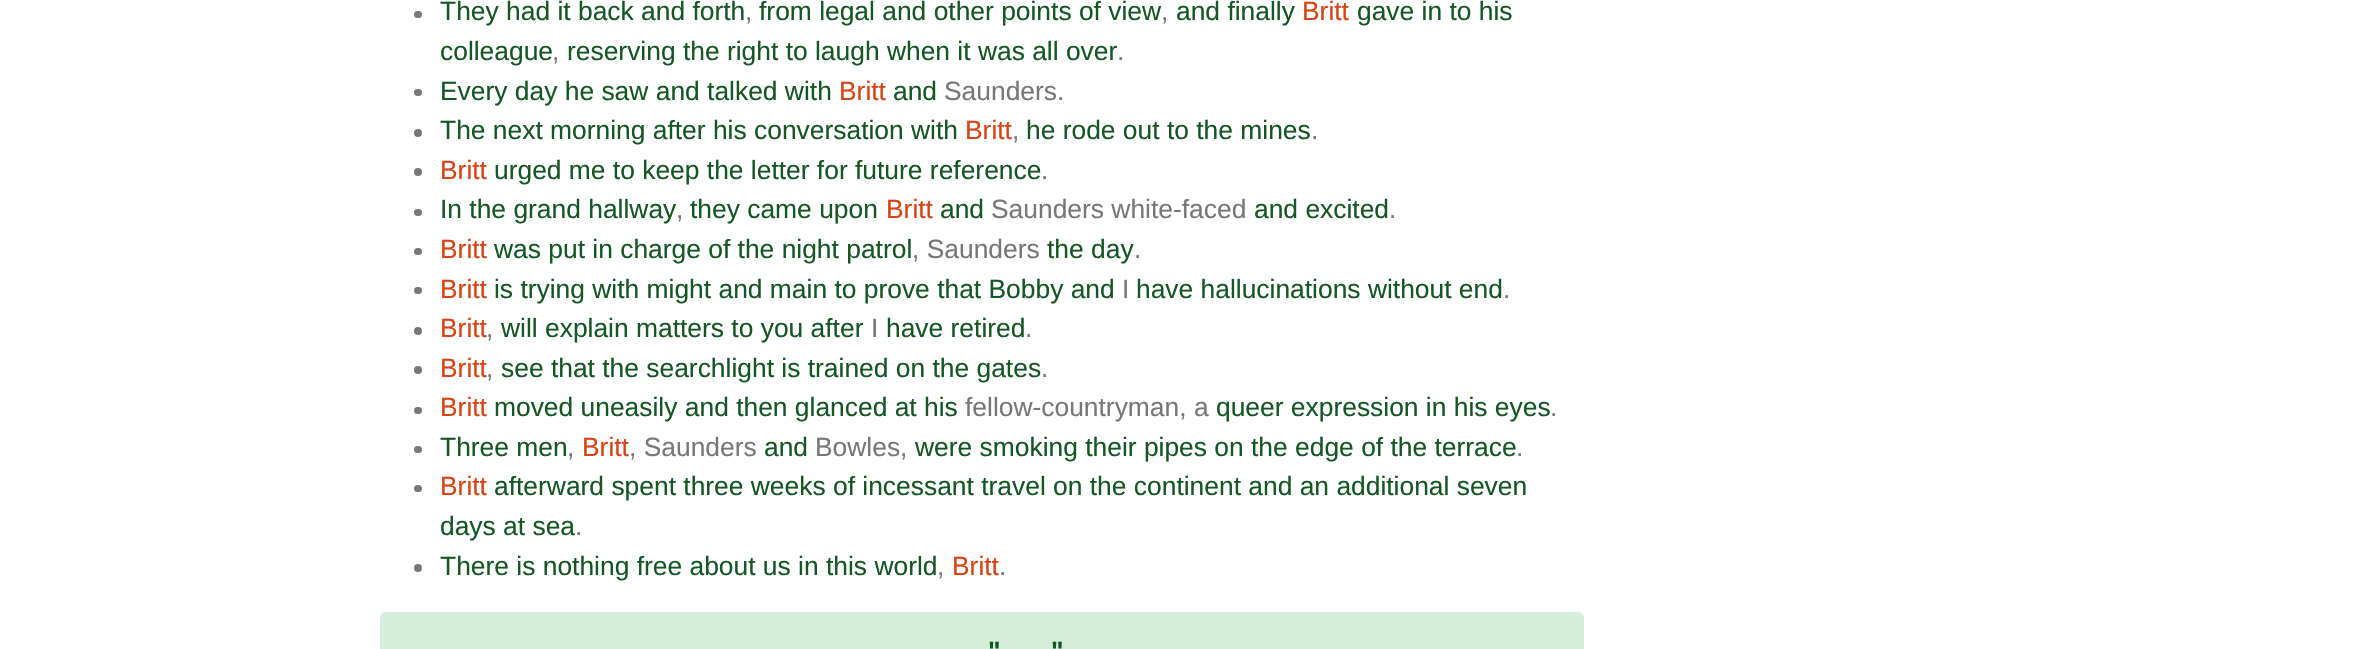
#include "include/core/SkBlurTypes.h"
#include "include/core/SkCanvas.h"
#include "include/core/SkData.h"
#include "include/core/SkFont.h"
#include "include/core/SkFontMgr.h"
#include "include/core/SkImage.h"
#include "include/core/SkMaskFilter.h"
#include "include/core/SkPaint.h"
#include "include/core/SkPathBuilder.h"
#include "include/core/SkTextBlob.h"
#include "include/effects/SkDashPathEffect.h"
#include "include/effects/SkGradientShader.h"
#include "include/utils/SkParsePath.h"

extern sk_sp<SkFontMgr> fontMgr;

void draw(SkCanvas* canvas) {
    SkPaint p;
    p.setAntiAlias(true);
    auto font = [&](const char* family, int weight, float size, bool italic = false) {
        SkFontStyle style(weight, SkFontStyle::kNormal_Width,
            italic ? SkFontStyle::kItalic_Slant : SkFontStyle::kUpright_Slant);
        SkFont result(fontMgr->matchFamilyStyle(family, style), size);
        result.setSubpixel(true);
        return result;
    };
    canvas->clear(0xFFFFFFFF);
    p.setColor(0xFF777777);
    canvas->drawRoundRect(SkRect::MakeLTRB(414, 11, 422, 18), 3.5f, 3.5f, p);
    auto font1 = font("Liberation Sans", 400, 26.4f);
    p.setColor(0xFF155724);
    {
        const struct { const char* s; float x, y; } items[] = {
            {"They had it back and forth", 440, 20},
            {"from legal and other points of view", 759, 20},
            {"and finally", 1176, 20},
        };
        for (auto [s, x, y] : items) {
            canvas->drawString(s, x, y, font1, p);
        }
    }
    p.setColor(0xFFD84314);
    canvas->drawString("Britt", 1302, 20, font1, p);
    p.setColor(0xFF155724);
    canvas->drawString("gave in to his", 1357, 20, font1, p);
    p.setColor(0xFF777777);
    canvas->drawString(",", 745, 20, font1, p);
    canvas->drawString(",", 1161, 20, font1, p);
    p.setColor(0xFF155724);
    canvas->drawString("colleague", 440, 60, font1, p);
    p.setColor(0xFF777777);
    canvas->drawString(",", 552, 60, font1, p);
    p.setColor(0xFF155724);
    canvas->drawString("reserving the right to laugh when it was all over", 567, 60, font1, p);
    p.setColor(0xFF777777);
    canvas->drawString(".", 1117, 60, font1, p);
    canvas->drawRoundRect(SkRect::MakeLTRB(414, 89, 422, 96), 3.5f, 3.5f, p);
    p.setColor(0xFF155724);
    canvas->drawString("Every day he saw and talked with", 440, 100, font1, p);
    p.setColor(0xFFD84314);
    canvas->drawString("Britt", 839, 100, font1, p);
    p.setColor(0xFF155724);
    canvas->drawString("and", 893, 100, font1, p);
    p.setColor(0xFF777777);
    canvas->drawString("Saunders.", 944, 100, font1, p);
    canvas->drawCircle(418, 133, 4, p);
    p.setColor(0xFF155724);
    canvas->drawString("The next morning after his conversation with", 440, 139, font1, p);
    p.setColor(0xFFD84314);
    canvas->drawString("Britt", 965, 139, font1, p);
    p.setColor(0xFF155724);
    canvas->drawString("he rode out to the mines", 1026, 139, font1, p);
    p.setColor(0xFF777777);
    canvas->drawString(",", 1012, 139, font1, p);
    canvas->drawString(".", 1311, 139, font1, p);
    canvas->drawCircle(418, 172, 4, p);
    p.setColor(0xFFD84314);
    canvas->drawString("Britt", 440, 179, font1, p);
    p.setColor(0xFF155724);
    canvas->drawString("urged me to keep the letter for future reference", 494, 179, font1, p);
    p.setColor(0xFF777777);
    canvas->drawString(".", 1041, 179, font1, p);
    canvas->drawRoundRect(SkRect::MakeLTRB(414, 209, 422, 216), 3.5f, 3.5f, p);
    p.setColor(0xFF155724);
    canvas->drawString("In the grand hallway", 440, 218, font1, p);
    canvas->drawString("they came upon", 690, 218, font1, p);
    p.setColor(0xFFD84314);
    canvas->drawString("Britt", 886, 218, font1, p);
    p.setColor(0xFF155724);
    canvas->drawString("and", 940, 218, font1, p);
    p.setColor(0xFF777777);
    canvas->drawString("Saunders white-faced", 991, 218, font1, p);
    p.setColor(0xFF155724);
    canvas->drawString("and excited", 1254, 218, font1, p);
    p.setColor(0xFF777777);
    canvas->drawString(",", 676, 218, font1, p);
    canvas->drawString(".", 1389, 218, font1, p);
    canvas->drawRoundRect(SkRect::MakeLTRB(414, 248, 422, 255), 3.5f, 3.5f, p);
    p.setColor(0xFFD84314);
    canvas->drawString("Britt", 440, 258, font1, p);
    p.setColor(0xFF155724);
    canvas->drawString("was put in charge of the night patrol", 494, 258, font1, p);
    p.setColor(0xFF777777);
    canvas->drawString(", Saunders", 912, 258, font1, p);
    p.setColor(0xFF155724);
    canvas->drawString("the day", 1047, 258, font1, p);
    p.setColor(0xFF777777);
    canvas->drawString(".", 1134, 258, font1, p);
    canvas->drawRoundRect(SkRect::MakeLTRB(414, 287, 422, 294), 3.5f, 3.5f, p);
    p.setColor(0xFFD84314);
    canvas->drawString("Britt", 440, 298, font1, p);
    p.setColor(0xFF155724);
    canvas->drawString("is trying with might and main to prove that Bobby and", 494, 298, font1, p);
    p.setColor(0xFF777777);
    canvas->drawString("I", 1122, 298, font1, p);
    p.setColor(0xFF155724);
    canvas->drawString("have hallucinations without end", 1136, 298, font1, p);
    p.setColor(0xFF777777);
    canvas->drawString(".", 1503, 298, font1, p);
    canvas->drawCircle(418, 331, 4, p);
    p.setColor(0xFFD84314);
    canvas->drawString("Britt", 440, 337, font1, p);
    p.setColor(0xFF155724);
    canvas->drawString("will explain matters to you after", 501, 337, font1, p);
    p.setColor(0xFF777777);
    canvas->drawString("I", 871, 337, font1, p);
    p.setColor(0xFF155724);
    canvas->drawString("have retired", 886, 337, font1, p);
    p.setColor(0xFF777777);
    canvas->drawString(",", 486, 337, font1, p);
    canvas->drawString(".", 1025, 337, font1, p);
    canvas->drawCircle(418, 370, 4, p);
    p.setColor(0xFFD84314);
    canvas->drawString("Britt", 440, 377, font1, p);
    p.setColor(0xFF155724);
    canvas->drawString("see that the searchlight is trained on the gates", 501, 377, font1, p);
    p.setColor(0xFF777777);
    canvas->drawString(",", 486, 377, font1, p);
    canvas->drawString(".", 1041, 377, font1, p);
    canvas->drawRoundRect(SkRect::MakeLTRB(414, 407, 422, 414), 3.5f, 3.5f, p);
    p.setColor(0xFFD84314);
    canvas->drawString("Britt", 440, 416, font1, p);
    p.setColor(0xFF155724);
    canvas->drawString("moved uneasily and then glanced at his", 494, 416, font1, p);
    p.setColor(0xFF777777);
    canvas->drawString("fellow-countryman, a", 965, 416, font1, p);
    p.setColor(0xFF155724);
    canvas->drawString("queer expression in his eyes", 1216, 416, font1, p);
    p.setColor(0xFF777777);
    canvas->drawString(".", 1550, 416, font1, p);
    canvas->drawRoundRect(SkRect::MakeLTRB(414, 446, 422, 453), 3.5f, 3.5f, p);
    p.setColor(0xFF155724);
    canvas->drawString("Three men", 440, 456, font1, p);
    p.setColor(0xFFD84314);
    canvas->drawString("Britt", 582, 456, font1, p);
    p.setColor(0xFF777777);
    canvas->drawString(", Saunders", 629, 456, font1, p);
    p.setColor(0xFF155724);
    canvas->drawString("and", 764, 456, font1, p);
    p.setColor(0xFF777777);
    canvas->drawString("Bowles,", 815, 456, font1, p);
    p.setColor(0xFF155724);
    canvas->drawString("were smoking their pipes on the edge of the terrace", 915, 456, font1, p);
    p.setColor(0xFF777777);
    canvas->drawString(",", 567, 456, font1, p);
    canvas->drawString(".", 1516, 456, font1, p);
    canvas->drawRoundRect(SkRect::MakeLTRB(414, 485, 422, 492), 3.5f, 3.5f, p);
    p.setColor(0xFFD84314);
    canvas->drawString("Britt", 440, 495, font1, p);
    p.setColor(0xFF155724);
    canvas->drawString("afterward spent three weeks of incessant travel on the continent and an additional seven", 494, 495, font1, p);
    canvas->drawString("days at sea", 440, 535, font1, p);
    p.setColor(0xFF777777);
    canvas->drawString(".", 575, 535, font1, p);
    canvas->drawCircle(418, 568, 4, p);
    p.setColor(0xFF155724);
    canvas->drawString("There is nothing free about us in this world", 440, 575, font1, p);
    p.setColor(0xFFD84314);
    canvas->drawString("Britt", 952, 575, font1, p);
    p.setColor(0xFF777777);
    canvas->drawString(",", 937, 575, font1, p);
    canvas->drawString(".", 999, 575, font1, p);
    p.setColor(0xFFD4EDDA);
    canvas->drawRoundRect(SkRect::MakeLTRB(380, 612, 1584, 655), 6, 6, p);
    auto font2 = font("Liberation Sans", 700, 26.4f);
    p.setColor(0xFF155724);
    canvas->drawString("\"", 988, 660, font2, p);
    canvas->drawString("\"", 1051, 660, font2, p);
}
